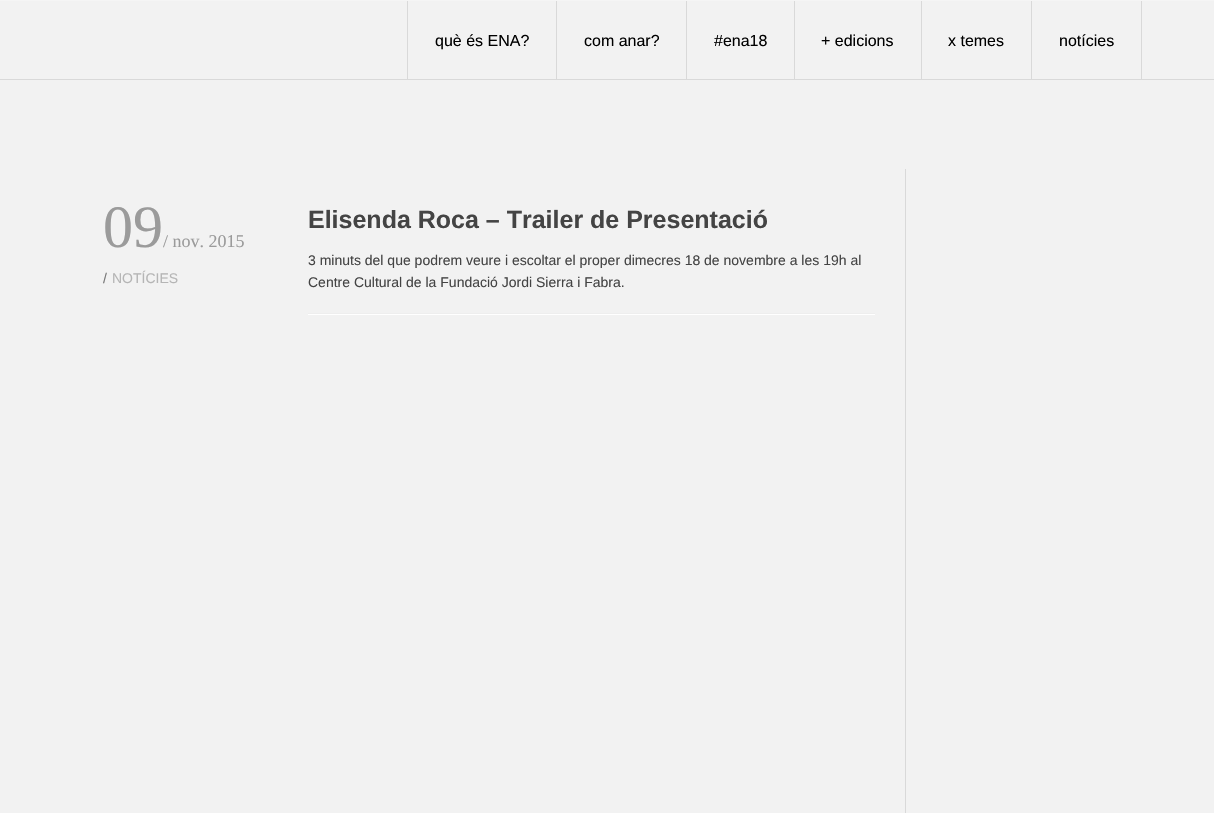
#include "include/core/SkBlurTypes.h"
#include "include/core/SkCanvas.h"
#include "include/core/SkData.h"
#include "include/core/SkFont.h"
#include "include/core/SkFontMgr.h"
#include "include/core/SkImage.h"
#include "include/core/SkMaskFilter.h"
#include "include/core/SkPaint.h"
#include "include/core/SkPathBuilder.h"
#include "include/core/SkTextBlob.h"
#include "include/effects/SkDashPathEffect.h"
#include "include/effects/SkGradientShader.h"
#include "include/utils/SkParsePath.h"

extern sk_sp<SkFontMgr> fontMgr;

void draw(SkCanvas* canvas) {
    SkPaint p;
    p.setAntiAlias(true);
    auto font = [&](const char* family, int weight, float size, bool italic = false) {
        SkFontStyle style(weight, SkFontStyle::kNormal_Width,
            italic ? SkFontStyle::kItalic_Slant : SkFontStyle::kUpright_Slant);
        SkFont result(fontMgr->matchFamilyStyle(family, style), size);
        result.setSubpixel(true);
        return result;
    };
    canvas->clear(0xFFF2F2F2);
    {
        const struct { float l, t, r, b; SkColor color; } items[] = {
            {0, 0, 1214, 1, 0xFFF5F5F5},
            {0, 79, 1214, 80, 0xFFD9D9D9},
            {556, 1, 557, 79, 0xFFD9D9D9},
            {407, 1, 408, 79, 0xFFD9D9D9},
        };
        for (auto [l, t, r, b, color] : items) {
            p.setColor(color);
            canvas->drawRect(SkRect::MakeLTRB(l, t, r, b), p);
        }
    }
    auto font1 = font("Liberation Sans", 400, 16);
    p.setColor(0xFF000000);
    canvas->drawString("què és ENA?", 435, 46, font1, p);
    p.setColor(0xFFD9D9D9);
    canvas->drawRect(SkRect::MakeLTRB(686, 1, 687, 79), p);
    p.setColor(0xFF000000);
    canvas->drawString("com anar?", 584, 46, font1, p);
    p.setColor(0xFFD9D9D9);
    canvas->drawRect(SkRect::MakeLTRB(794, 1, 795, 79), p);
    p.setColor(0xFF000000);
    canvas->drawString("#ena18", 714, 46, font1, p);
    p.setColor(0xFFD9D9D9);
    canvas->drawRect(SkRect::MakeLTRB(921, 1, 922, 79), p);
    p.setColor(0xFF000000);
    canvas->drawString("+ edicions", 821, 46, font1, p);
    p.setColor(0xFFD9D9D9);
    canvas->drawRect(SkRect::MakeLTRB(1031, 1, 1032, 79), p);
    p.setColor(0xFF000000);
    canvas->drawString("x temes", 948, 46, font1, p);
    p.setColor(0xFFD9D9D9);
    canvas->drawRect(SkRect::MakeLTRB(1141, 1, 1142, 79), p);
    p.setColor(0xFF000000);
    canvas->drawString("notícies", 1059, 46, font1, p);
    auto font2 = font("Liberation Serif", 400, 60);
    p.setColor(0xFF9B9B9B);
    canvas->drawString("09", 103, 247, font2, p);
    auto font3 = font("Liberation Serif", 400, 18);
    canvas->drawString("/ nov. 2015", 163, 247, font3, p);
    auto font4 = font("Liberation Sans", 400, 14);
    p.setColor(0xFF787878);
    canvas->drawString("/", 103, 283, font4, p);
    p.setColor(0xFFB5B5B5);
    canvas->drawString("NOTÍCIES", 112, 283, font4, p);
    p.setColor(0xFFD9D9D9);
    canvas->drawRect(SkRect::MakeLTRB(905, 169, 906, 813), p);
    auto font5 = font("Liberation Sans", 700, 25);
    p.setColor(0xFF444444);
    canvas->drawString("Elisenda Roca – Trailer de Presentació", 308, 228, font5, p);
    canvas->drawString("3 minuts del que podrem veure i escoltar el proper dimecres 18 de novembre a les 19h al", 308, 265, font4, p);
    canvas->drawString("Centre Cultural de la Fundació Jordi Sierra i Fabra.", 308, 287, font4, p);
    p.setColor(0xFFEEEEEE);
    canvas->drawRect(SkRect::MakeLTRB(308, 313, 875, 314), p);
    p.setColor(0xFFFFFFFF);
    canvas->drawRect(SkRect::MakeLTRB(308, 314, 875, 315), p);
}
